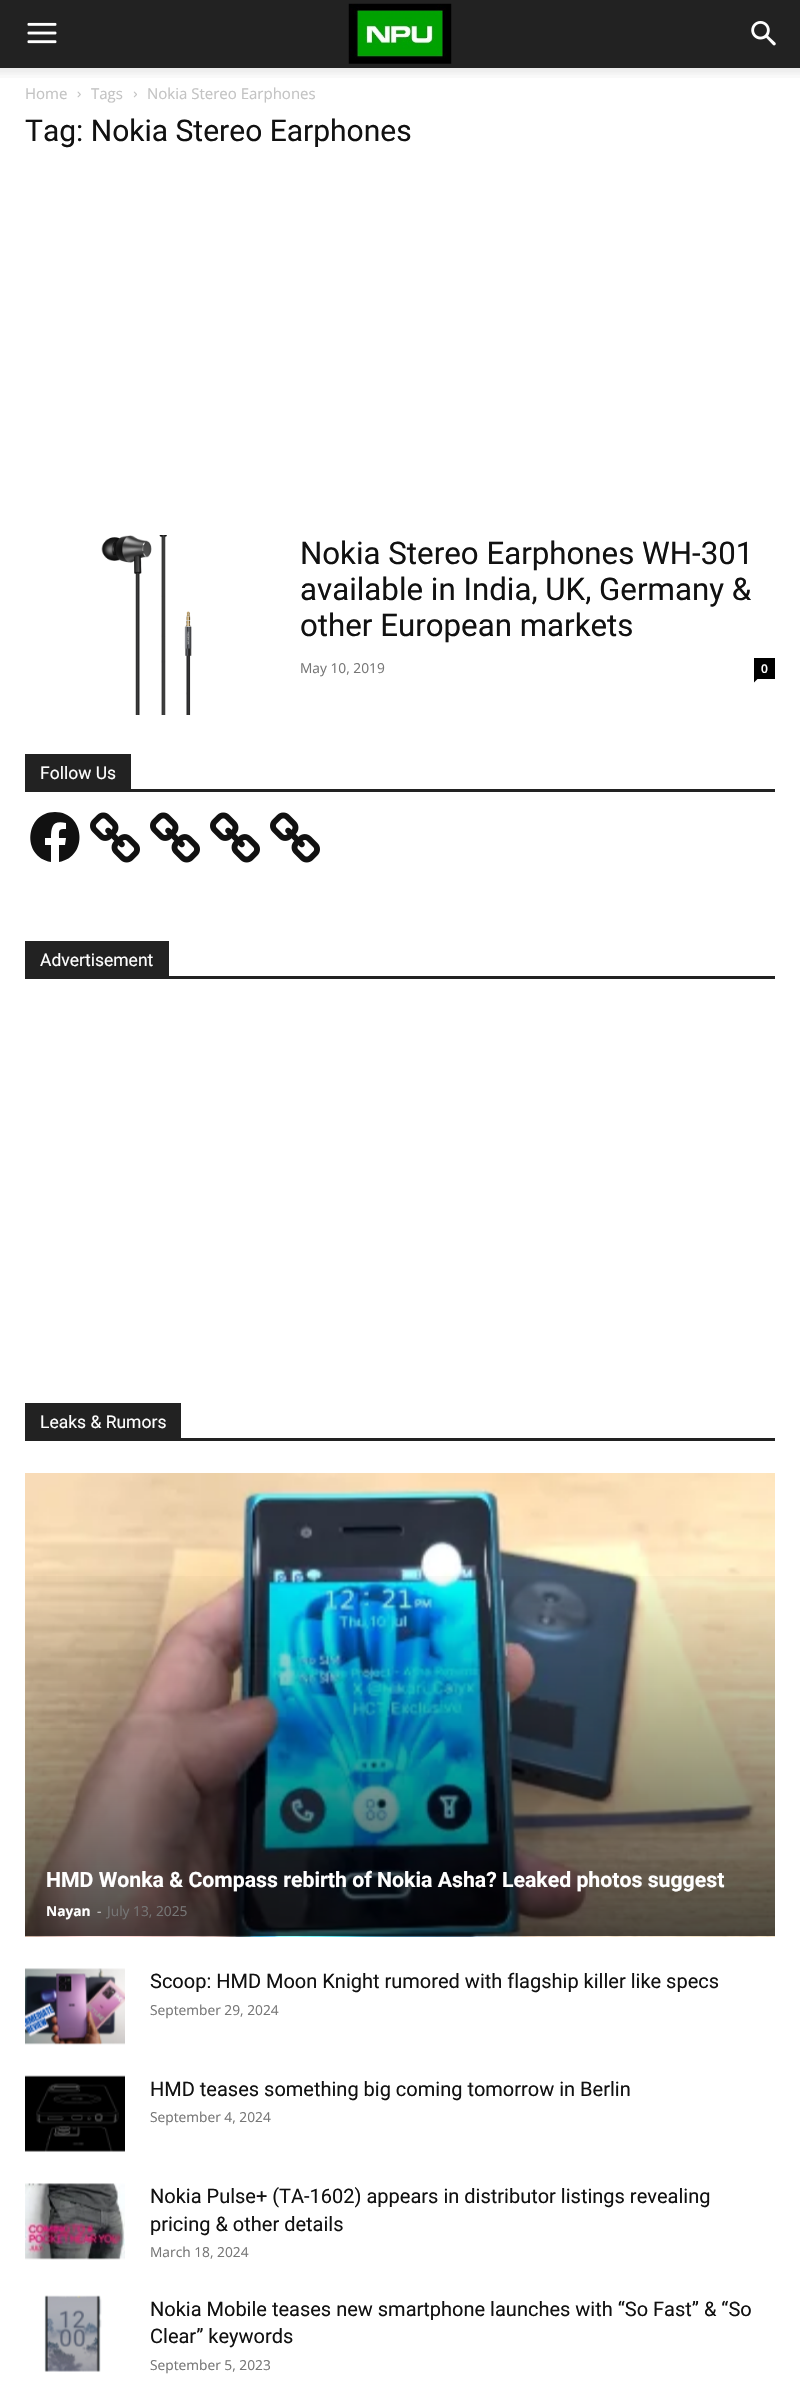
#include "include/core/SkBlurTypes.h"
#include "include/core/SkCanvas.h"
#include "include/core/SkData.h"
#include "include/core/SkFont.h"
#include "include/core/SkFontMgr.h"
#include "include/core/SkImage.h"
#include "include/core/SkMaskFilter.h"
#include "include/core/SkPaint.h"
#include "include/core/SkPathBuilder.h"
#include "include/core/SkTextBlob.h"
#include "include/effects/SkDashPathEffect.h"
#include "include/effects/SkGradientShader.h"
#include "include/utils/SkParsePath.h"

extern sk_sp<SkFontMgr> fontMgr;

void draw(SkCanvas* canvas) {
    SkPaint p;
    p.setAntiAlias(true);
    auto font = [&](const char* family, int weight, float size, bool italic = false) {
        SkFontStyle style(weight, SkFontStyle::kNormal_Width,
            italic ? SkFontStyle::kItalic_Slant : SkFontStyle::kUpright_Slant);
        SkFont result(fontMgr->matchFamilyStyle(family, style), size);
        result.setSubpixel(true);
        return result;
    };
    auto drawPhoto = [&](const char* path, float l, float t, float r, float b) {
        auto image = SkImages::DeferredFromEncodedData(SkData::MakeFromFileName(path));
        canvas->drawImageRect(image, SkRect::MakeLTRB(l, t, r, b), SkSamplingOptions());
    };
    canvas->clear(0xFFFFFFFF);
    p.setColor(0xFF222222);
    canvas->drawRect(SkRect::MakeLTRB(0, 0, 800, 68), p);
    drawPhoto("media/1.png", 27, 22, 57, 44);
    drawPhoto("media/2.png", 348, 3, 452, 64);
    drawPhoto("media/3.png", 751, 21, 776, 46);
    drawPhoto("media/4.png", 0, 68, 800, 78);
    auto font1 = font("Open Sans", 400, 15);
    p.setColor(0xFFC3C3C3);
    canvas->drawString("Home", 25, 99, font1, p);
    drawPhoto("media/5.png", 77, 91, 81, 98);
    canvas->drawString("Tags", 91, 99, font1, p);
    drawPhoto("media/6.png", 133, 91, 137, 98);
    canvas->drawString("Nokia Stereo Earphones", 147, 99, font1, p);
    auto font2 = font("Roboto", 400, 30);
    p.setColor(0xFF111111);
    canvas->drawString("Tag: Nokia Stereo Earphones", 25, 141, font2, p);
    drawPhoto("media/7.png", 101, 535, 192, 715);
    auto font3 = font("Roboto", 400, 31.25f);
    {
        const struct { const char* s; float x, y; } items[] = {
            {"Nokia Stereo Earphones WH-301", 300, 564},
            {"available in India, UK, Germany &", 300, 600},
            {"other European markets", 300, 636},
        };
        for (auto [s, x, y] : items) {
            canvas->drawString(s, x, y, font3, p);
        }
    }
    auto font4 = font("Open Sans", 400, 13.75f);
    p.setColor(0xFF767676);
    canvas->drawString("May 10, 2019", 300, 673, font4, p);
    p.setColor(0xFF000000);
    canvas->drawRect(SkRect::MakeLTRB(754, 658, 775, 679), p);
    auto font5 = font("Open Sans", 600, 12);
    p.setColor(0xFFFFFFFF);
    canvas->drawString("0", 761, 673, font5, p);
    p.setColor(0xFF000000);
    canvas->drawPath(SkPathBuilder().moveTo(754, 679).lineTo(757.5f, 679).lineTo(754, 682.5f).close().detach(), p);
    p.setColor(0xFF222222);
    canvas->drawRect(SkRect::MakeLTRB(25, 789, 775, 792), p);
    canvas->drawRect(SkRect::MakeLTRB(25, 754, 131, 789), p);
    auto font6 = font("Roboto", 400, 17.5f);
    p.setColor(0xFFFFFFFF);
    canvas->drawString("Follow Us", 40, 779, font6, p);
    p.setColor(0xFF111111);
    canvas->drawPath(SkPathBuilder().moveTo(55, 812).cubicTo(25, 812, 21, 857, 51, 862).lineTo(51, 845).lineTo(45, 845).lineTo(45, 838).lineTo(51, 838).cubicTo(51, 826, 53, 820, 66, 823).lineTo(66, 829).cubicTo(58, 829, 59, 830, 59, 838).lineTo(66, 838).lineTo(65, 845).lineTo(59, 845).lineTo(59, 862).cubicTo(89, 857, 85, 812, 55, 812).close().detach(), p);
    drawPhoto("media/8.png", 90, 812, 140, 863);
    drawPhoto("media/8.png", 150, 812, 200, 863);
    drawPhoto("media/8.png", 210, 812, 260, 863);
    drawPhoto("media/8.png", 270, 812, 320, 863);
    p.setColor(0xFF222222);
    canvas->drawRect(SkRect::MakeLTRB(25, 976, 775, 979), p);
    canvas->drawRect(SkRect::MakeLTRB(25, 941, 169, 976), p);
    p.setColor(0xFFFFFFFF);
    canvas->drawString("Advertisement", 40, 966, font6, p);
    p.setColor(0xFF222222);
    canvas->drawRect(SkRect::MakeLTRB(25, 1438, 775, 1441), p);
    canvas->drawRect(SkRect::MakeLTRB(25, 1403, 181, 1438), p);
    p.setColor(0xFFFFFFFF);
    canvas->drawString("Leaks & Rumors", 40, 1428, font6, p);
    drawPhoto("media/9.png", 25, 1473, 775, 1937);
    {
        const SkColor colors[] = {0x00000000, 0xB3000000};
        const float stops[] = {0, 1};
        const SkPoint ends[] = {{400, 1565}, {400, 1936}};
        p.setShader(SkGradientShader::MakeLinear(ends, colors, stops, 2, SkTileMode::kClamp));
        p.setAlpha(255);
    }
    canvas->drawRect(SkRect::MakeLTRB(25, 1576, 775, 1936), p);
    auto font7 = font("Roboto", 700, 21.25f);
    p.setShader(nullptr);
    p.setColor(0xFFFFFFFF);
    canvas->drawString("HMD Wonka & Compass rebirth of Nokia Asha? Leaked photos suggest", 46, 1887, font7, p);
    auto font8 = font("Open Sans", 700, 13.75f);
    canvas->drawString("Nayan", 46, 1916, font8, p);
    p.setColor(0xFFCCCCCC);
    canvas->drawString("-", 97, 1916, font4, p);
    p.setColor(0xFF767676);
    canvas->drawString("July 13, 2025", 107, 1916, font4, p);
    drawPhoto("media/10.png", 25, 1968, 125, 2045);
    auto font9 = font("Roboto", 400, 20);
    p.setColor(0xFF111111);
    canvas->drawString("Scoop: HMD Moon Knight rumored with flagship killer like specs", 150, 1988, font9, p);
    p.setColor(0xFF767676);
    canvas->drawString("September 29, 2024", 150, 2015, font4, p);
    drawPhoto("media/11.png", 25, 2075, 125, 2152);
    p.setColor(0xFF111111);
    canvas->drawString("HMD teases something big coming tomorrow in Berlin", 150, 2096, font9, p);
    p.setColor(0xFF767676);
    canvas->drawString("September 4, 2024", 150, 2122, font4, p);
    drawPhoto("media/12.png", 25, 2183, 125, 2260);
    p.setColor(0xFF111111);
    canvas->drawString("Nokia Pulse+ (TA-1602) appears in distributor listings revealing", 150, 2203, font9, p);
    canvas->drawString("pricing & other details", 150, 2231, font9, p);
    p.setColor(0xFF767676);
    canvas->drawString("March 18, 2024", 150, 2257, font4, p);
    drawPhoto("media/13.png", 44, 2295, 102, 2372);
    p.setColor(0xFF111111);
    canvas->drawString("Nokia Mobile teases new smartphone launches with “So Fast” & “So", 150, 2316, font9, p);
    canvas->drawString("Clear” keywords", 150, 2343, font9, p);
    p.setColor(0xFF767676);
    canvas->drawString("September 5, 2023", 150, 2370, font4, p);
}
